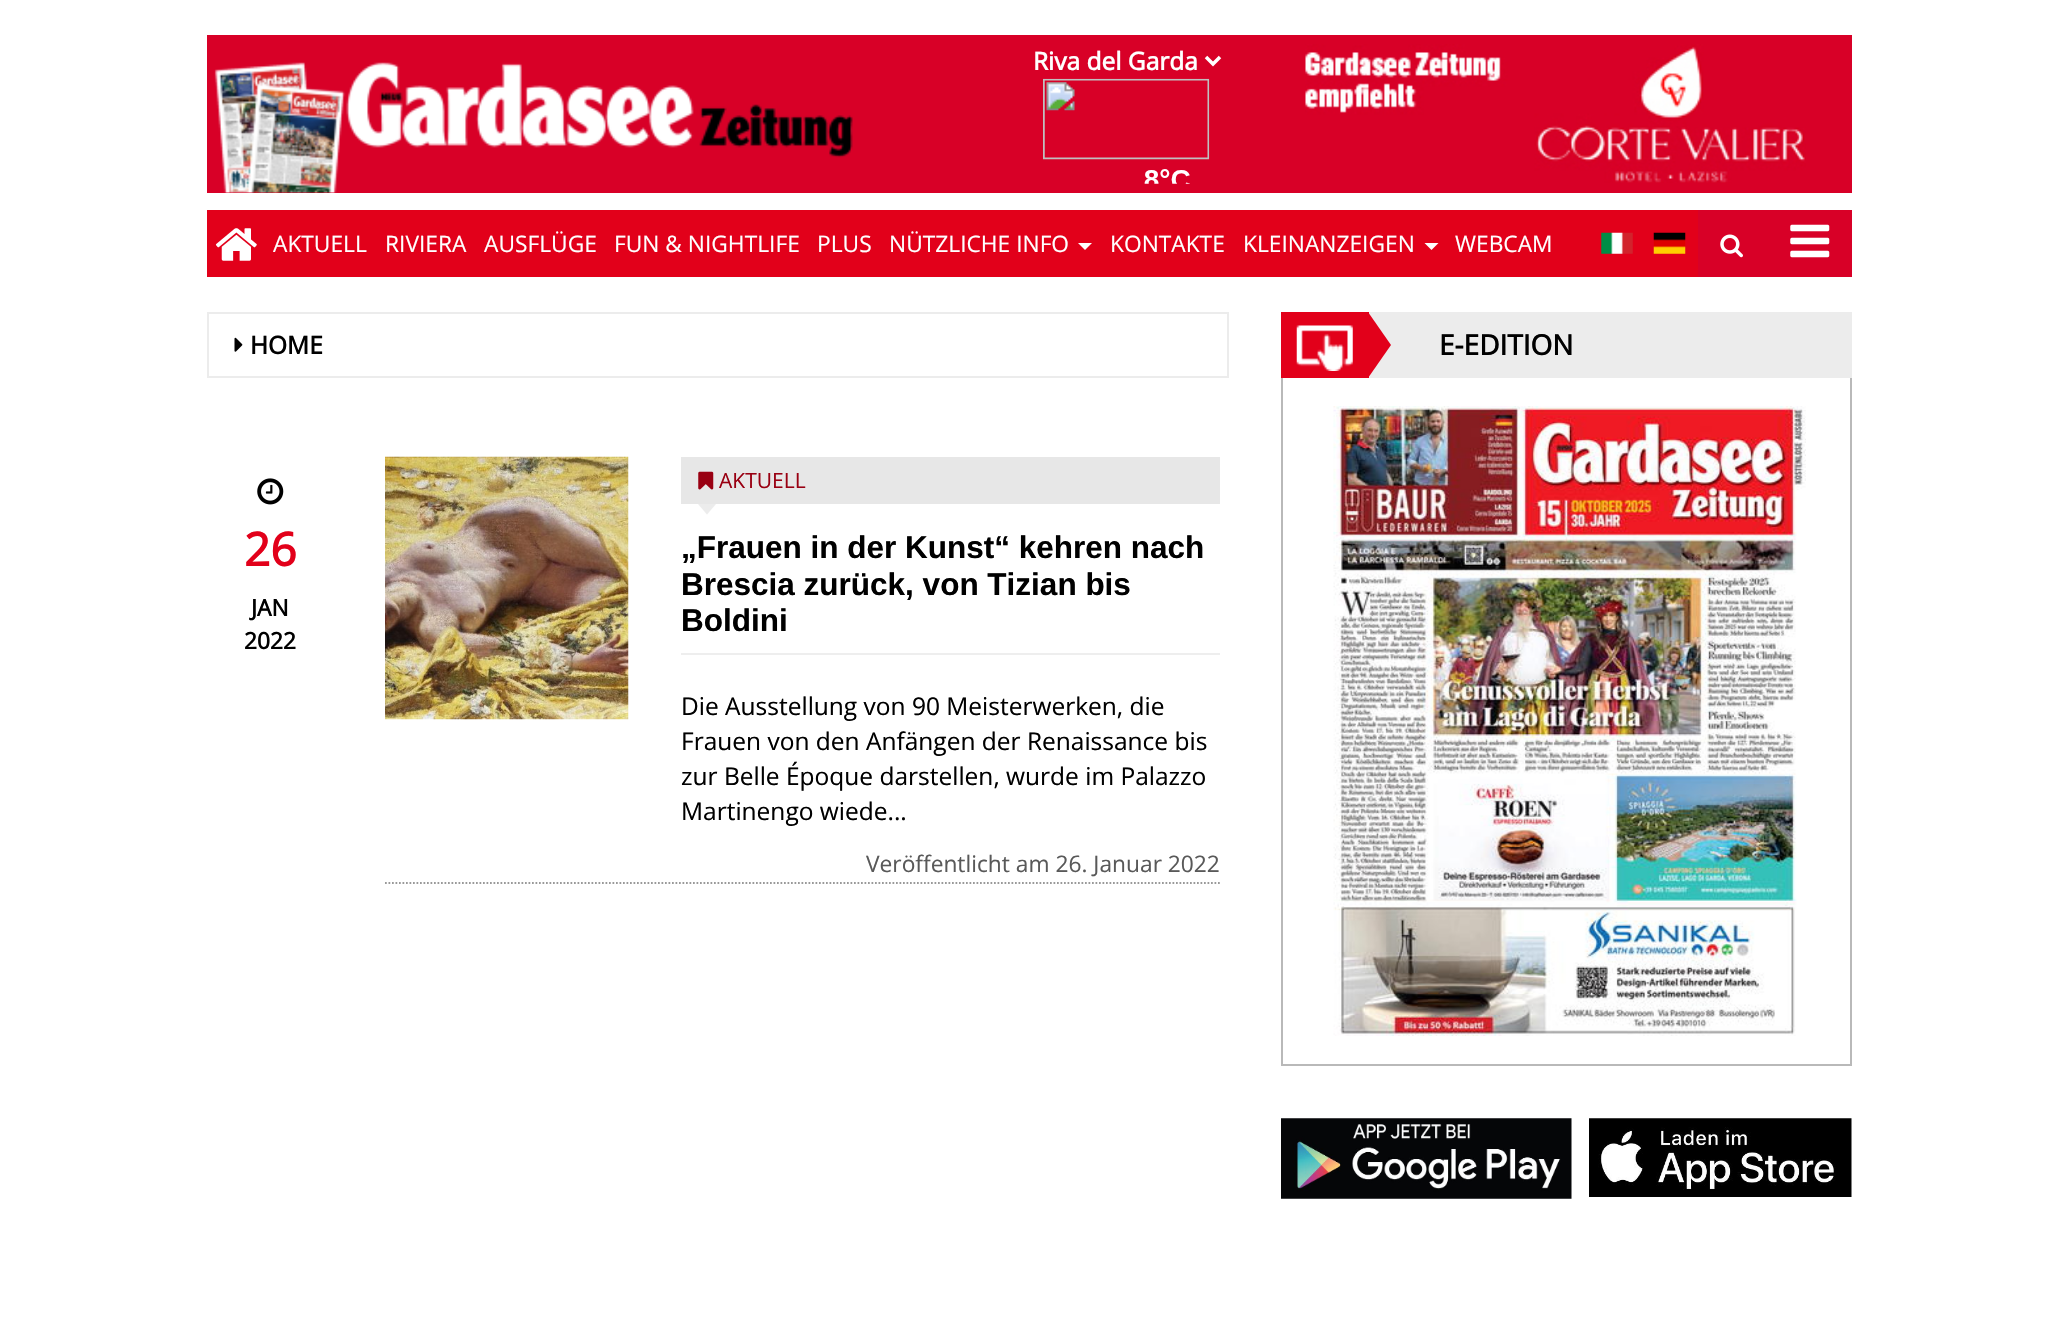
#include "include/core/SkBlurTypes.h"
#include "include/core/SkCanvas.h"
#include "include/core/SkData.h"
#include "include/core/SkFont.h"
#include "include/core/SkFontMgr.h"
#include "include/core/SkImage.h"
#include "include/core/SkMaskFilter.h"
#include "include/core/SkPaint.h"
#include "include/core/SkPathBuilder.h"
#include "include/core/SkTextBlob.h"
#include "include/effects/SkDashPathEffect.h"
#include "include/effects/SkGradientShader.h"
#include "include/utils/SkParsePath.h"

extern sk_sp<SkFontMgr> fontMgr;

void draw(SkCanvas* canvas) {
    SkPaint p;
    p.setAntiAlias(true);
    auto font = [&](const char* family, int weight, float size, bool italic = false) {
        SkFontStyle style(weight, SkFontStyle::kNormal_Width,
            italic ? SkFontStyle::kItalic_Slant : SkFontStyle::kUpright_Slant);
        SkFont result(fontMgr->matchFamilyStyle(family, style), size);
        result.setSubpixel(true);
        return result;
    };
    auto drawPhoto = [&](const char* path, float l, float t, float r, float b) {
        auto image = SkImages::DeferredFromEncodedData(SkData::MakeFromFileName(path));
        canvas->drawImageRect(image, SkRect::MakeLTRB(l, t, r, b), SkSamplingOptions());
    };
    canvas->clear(0xFFFFFFFF);
    p.setColor(0xFFD80027);
    canvas->drawRect(SkRect::MakeLTRB(207, 35, 1852, 193), p);
    drawPhoto("media/1.png", 214, 62, 853, 193);
    p.setStyle(SkPaint::kStroke_Style);
    p.setStrokeWidth(3.5f);
    p.setColor(0xFFFFFFFF);
    canvas->drawPath(SkPathBuilder().moveTo(1206, 57).lineTo(1213, 64).lineTo(1220, 57).detach(), p);
    auto font1 = font("Open Sans", 700, 24.5f);
    p.setStyle(SkPaint::kFill_Style);
    canvas->drawString("Riva del Garda", 1033, 70, font1, p);
    drawPhoto("media/2.png", 1043, 78, 1210, 184);
    drawPhoto("media/3.png", 1305, 44, 1806, 183);
    p.setColor(0xFFE2001A);
    canvas->drawRect(SkRect::MakeLTRB(207, 210, 1698, 277), p);
    drawPhoto("media/4.png", 215, 228, 257, 261);
    auto font2 = font("Open Sans", 400, 22.75f);
    p.setColor(0xFFFFFFFF);
    {
        const struct { const char* s; float x, y; } items[] = {
            {"AKTUELL", 273, 252},
            {"RIVIERA", 385, 252},
            {"AUSFLÜGE", 484, 252},
            {"FUN & NIGHTLIFE", 614, 252},
            {"PLUS", 817, 252},
            {"NÜTZLICHE INFO", 889, 252},
        };
        for (auto [s, x, y] : items) {
            canvas->drawString(s, x, y, font2, p);
        }
    }
    canvas->drawPath(SkPathBuilder().moveTo(1078, 243).lineTo(1092, 243).lineTo(1085, 250).close().detach(), p);
    canvas->drawString("KONTAKTE", 1110, 252, font2, p);
    canvas->drawString("KLEINANZEIGEN", 1243, 252, font2, p);
    canvas->drawPath(SkPathBuilder().moveTo(1424.5f, 243).lineTo(1438.5f, 243).lineTo(1431.5f, 250).close().detach(), p);
    canvas->drawString("WEBCAM", 1455, 252, font2, p);
    p.setColor(0xFFD80027);
    canvas->drawRect(SkRect::MakeLTRB(1698, 210, 1852, 277), p);
    drawPhoto("media/5.png", 1720, 234, 1743, 258);
    drawPhoto("media/6.png", 1601, 232, 1633, 254);
    drawPhoto("media/7.png", 1653, 232, 1686, 254);
    drawPhoto("media/8.png", 1790, 224, 1830, 258);
    p.setStyle(SkPaint::kStroke_Style);
    p.setStrokeWidth(2);
    p.setColor(0xFFECECEC);
    canvas->drawRect(SkRect::MakeLTRB(208, 313, 1228, 377), p);
    drawPhoto("media/9.png", 234, 337, 243, 352);
    p.setStyle(SkPaint::kFill_Style);
    p.setColor(0xFF000000);
    canvas->drawString("HOME", 250, 354, font1, p);
    drawPhoto("media/10.png", 257, 478, 284, 505);
    auto font3 = font("Open Sans", 700, 46);
    p.setColor(0xFFE2001A);
    canvas->drawString("26", 244, 566, font3, p);
    auto font4 = font("Open Sans", 700, 22.75f);
    p.setColor(0xFF000000);
    canvas->drawString("JAN", 251, 616, font4, p);
    canvas->drawString("2022", 244, 649, font4, p);
    p.setStyle(SkPaint::kStroke_Style);
    p.setStrokeWidth(1.8f);
    p.setColor(0xFF999999);
    p.setPathEffect(SkDashPathEffect::Make({{1.75f, 1.75f}}, 0));
    canvas->drawPath(SkPathBuilder().moveTo(385, 883).lineTo(1220, 883).detach(), p);
    p.setPathEffect(nullptr);
    drawPhoto("media/11.png", 385, 456, 629, 720);
    p.setStyle(SkPaint::kFill_Style);
    p.setColor(0xFFE7E7E7);
    canvas->drawRect(SkRect::MakeLTRB(681, 457, 1220, 504), p);
    drawPhoto("media/12.png", 698, 471, 714, 490);
    auto font5 = font("Open Sans", 400, 21);
    p.setColor(0xFF990012);
    canvas->drawString("AKTUELL", 719, 488, font5, p);
    p.setColor(0xFFECECEC);
    canvas->drawPath(SkPathBuilder().moveTo(698, 504).lineTo(716, 504).lineTo(707, 514.5f).close().detach(), p);
    auto font6 = font("Liberation Sans", 700, 31.5f);
    p.setColor(0xFF000000);
    {
        const struct { const char* s; float x, y; } items[] = {
            {"„Frauen in der Kunst“ kehren nach", 681, 558},
            {"Brescia zurück, von Tizian bis", 681, 595},
            {"Boldini", 681, 631},
        };
        for (auto [s, x, y] : items) {
            canvas->drawString(s, x, y, font6, p);
        }
    }
    p.setColor(0xFFEEEEEE);
    canvas->drawRect(SkRect::MakeLTRB(681, 653, 1220, 655), p);
    auto font7 = font("Open Sans", 400, 24.5f);
    p.setColor(0xFF000000);
    {
        const struct { const char* s; float x, y; } items[] = {
            {"Die Ausstellung von 90 Meisterwerken, die", 681, 715},
            {"Frauen von den Anfängen der Renaissance bis", 681, 750},
            {"zur Belle Époque darstellen, wurde im Palazzo", 681, 785},
            {"Martinengo wiede...", 681, 820},
        };
        for (auto [s, x, y] : items) {
            canvas->drawString(s, x, y, font7, p);
        }
    }
    p.setColor(0xFF595959);
    canvas->drawString("Veröffentlicht am 26. Januar 2022", 866, 872, font2, p);
    p.setColor(0xFFECECEC);
    canvas->drawRect(SkRect::MakeLTRB(1369, 312, 1852, 378), p);
    p.setColor(0xFFE2001A);
    canvas->drawRect(SkRect::MakeLTRB(1281, 312, 1369, 378), p);
    drawPhoto("media/13.png", 1296, 325, 1353, 371);
    canvas->drawPath(SkPathBuilder().moveTo(1368, 378).lineTo(1368, 312).lineTo(1391, 345).close().detach(), p);
    auto font8 = font("Open Sans", 700, 28);
    p.setColor(0xFF000000);
    canvas->drawString("E-EDITION", 1439, 355, font8, p);
    {
        const struct { float l, t, r, b; SkColor color; } items[] = {
            {1850, 378, 1852, 1066, 0xFFB9B9B9},
            {1281, 1064, 1852, 1066, 0xFFB9B9B9},
            {1281, 378, 1283, 1066, 0xFFB9B9B9},
        };
        for (auto [l, t, r, b, color] : items) {
            p.setColor(color);
            canvas->drawRect(SkRect::MakeLTRB(l, t, r, b), p);
        }
    }
    drawPhoto("media/14.png", 1333, 406, 1806, 1036);
    drawPhoto("media/15.png", 1281, 1118, 1572, 1199);
    drawPhoto("media/16.png", 1589, 1118, 1852, 1197);
}
